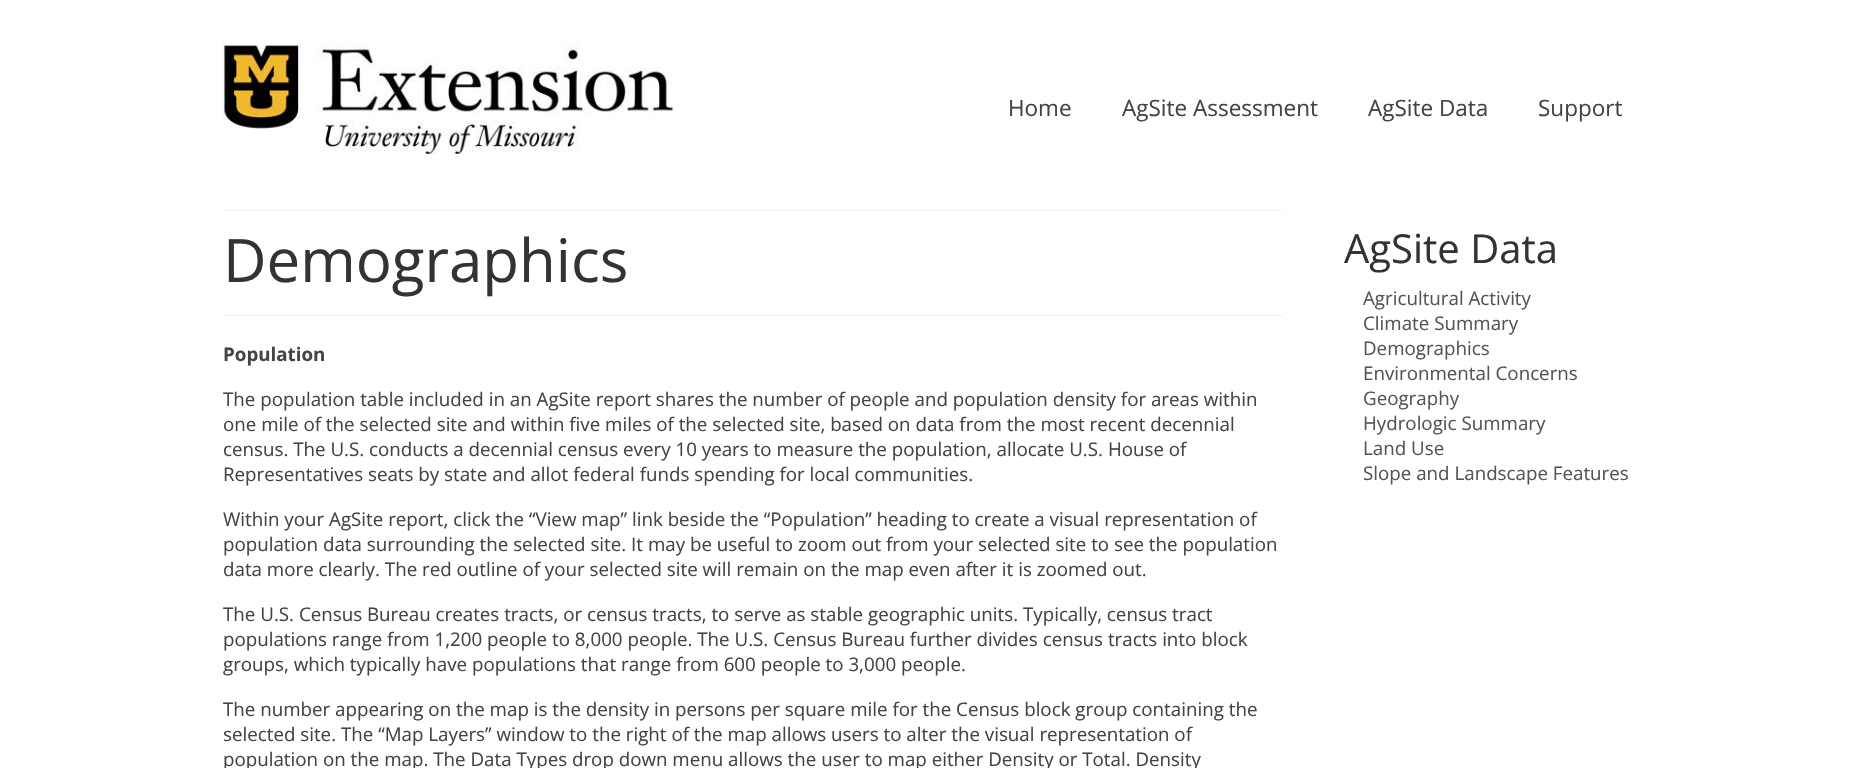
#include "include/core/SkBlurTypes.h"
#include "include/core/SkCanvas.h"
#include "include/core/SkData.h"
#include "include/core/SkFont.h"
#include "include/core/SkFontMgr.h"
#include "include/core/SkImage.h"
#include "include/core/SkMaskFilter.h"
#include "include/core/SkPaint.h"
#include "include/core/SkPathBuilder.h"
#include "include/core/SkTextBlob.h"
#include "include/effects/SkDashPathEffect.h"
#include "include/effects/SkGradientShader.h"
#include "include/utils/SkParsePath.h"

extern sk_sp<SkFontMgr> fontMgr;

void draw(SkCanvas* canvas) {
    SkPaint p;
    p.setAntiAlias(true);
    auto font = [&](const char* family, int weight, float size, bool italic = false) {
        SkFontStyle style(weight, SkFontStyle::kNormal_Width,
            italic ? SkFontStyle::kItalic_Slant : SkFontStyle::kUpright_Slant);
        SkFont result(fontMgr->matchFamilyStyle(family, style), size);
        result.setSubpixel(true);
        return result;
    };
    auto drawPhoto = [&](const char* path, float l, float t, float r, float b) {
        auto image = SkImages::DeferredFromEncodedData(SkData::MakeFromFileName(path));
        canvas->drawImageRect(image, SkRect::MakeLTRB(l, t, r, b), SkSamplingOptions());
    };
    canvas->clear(0xFFFFFFFF);
    drawPhoto("media/1.png", 222, 43, 673, 154);
    auto font1 = font("Open Sans", 400, 22.5f);
    p.setColor(0xFF444444);
    {
        const struct { const char* s; float x, y; } items[] = {
            {"Home", 1008, 116},
            {"AgSite Assessment", 1122, 116},
            {"AgSite Data", 1368, 116},
            {"Support", 1538, 116},
        };
        for (auto [s, x, y] : items) {
            canvas->drawString(s, x, y, font1, p);
        }
    }
    p.setColor(0xFFF2F2F2);
    canvas->drawRect(SkRect::MakeLTRB(223, 210, 1283, 211), p);
    canvas->drawRect(SkRect::MakeLTRB(223, 315, 1283, 316), p);
    auto font2 = font("Open Sans", 400, 60);
    p.setColor(0xFF333333);
    canvas->drawString("Demographics", 223, 282, font2, p);
    auto font3 = font("Open Sans", 700, 18.75f);
    p.setColor(0xFF444444);
    canvas->drawString("Population", 223, 361, font3, p);
    auto font4 = font("Open Sans", 400, 18.75f);
    {
        const struct { const char* s; float x, y; } items[] = {
            {"The population table included in an AgSite report shares the number of people and population density for areas within", 223, 406},
            {"one mile of the selected site and within five miles of the selected site, based on data from the most recent decennial", 223, 431},
            {"census. The U.S. conducts a decennial census every 10 years to measure the population, allocate U.S. House of", 223, 456},
            {"Representatives seats by state and allot federal funds spending for local communities.", 223, 481},
            {"Within your AgSite report, click the “View map” link beside the “Population” heading to create a visual representation of", 223, 526},
            {"population data surrounding the selected site. It may be useful to zoom out from your selected site to see the population", 223, 551},
            {"data more clearly. The red outline of your selected site will remain on the map even after it is zoomed out.", 223, 576},
            {"The U.S. Census Bureau creates tracts, or census tracts, to serve as stable geographic units. Typically, census tract", 223, 621},
            {"populations range from 1,200 people to 8,000 people. The U.S. Census Bureau further divides census tracts into block", 223, 646},
            {"groups, which typically have populations that range from 600 people to 3,000 people.", 223, 671},
            {"The number appearing on the map is the density in persons per square mile for the Census block group containing the", 223, 716},
            {"selected site. The “Map Layers” window to the right of the map allows users to alter the visual representation of", 223, 741},
            {"population on the map. The Data Types drop down menu allows the user to map either Density or Total. Density", 223, 766},
        };
        for (auto [s, x, y] : items) {
            canvas->drawString(s, x, y, font4, p);
        }
    }
    auto font5 = font("Open Sans", 400, 40);
    p.setColor(0xFF333333);
    canvas->drawString("AgSite Data", 1344, 263, font5, p);
    p.setColor(0xFF555555);
    {
        const struct { const char* s; float x, y; } items[] = {
            {"Agricultural Activity", 1363, 305},
            {"Climate Summary", 1363, 330},
            {"Demographics", 1363, 355},
            {"Environmental Concerns", 1363, 380},
            {"Geography", 1363, 405},
            {"Hydrologic Summary", 1363, 430},
            {"Land Use", 1363, 455},
            {"Slope and Landscape Features", 1363, 480},
        };
        for (auto [s, x, y] : items) {
            canvas->drawString(s, x, y, font4, p);
        }
    }
}
